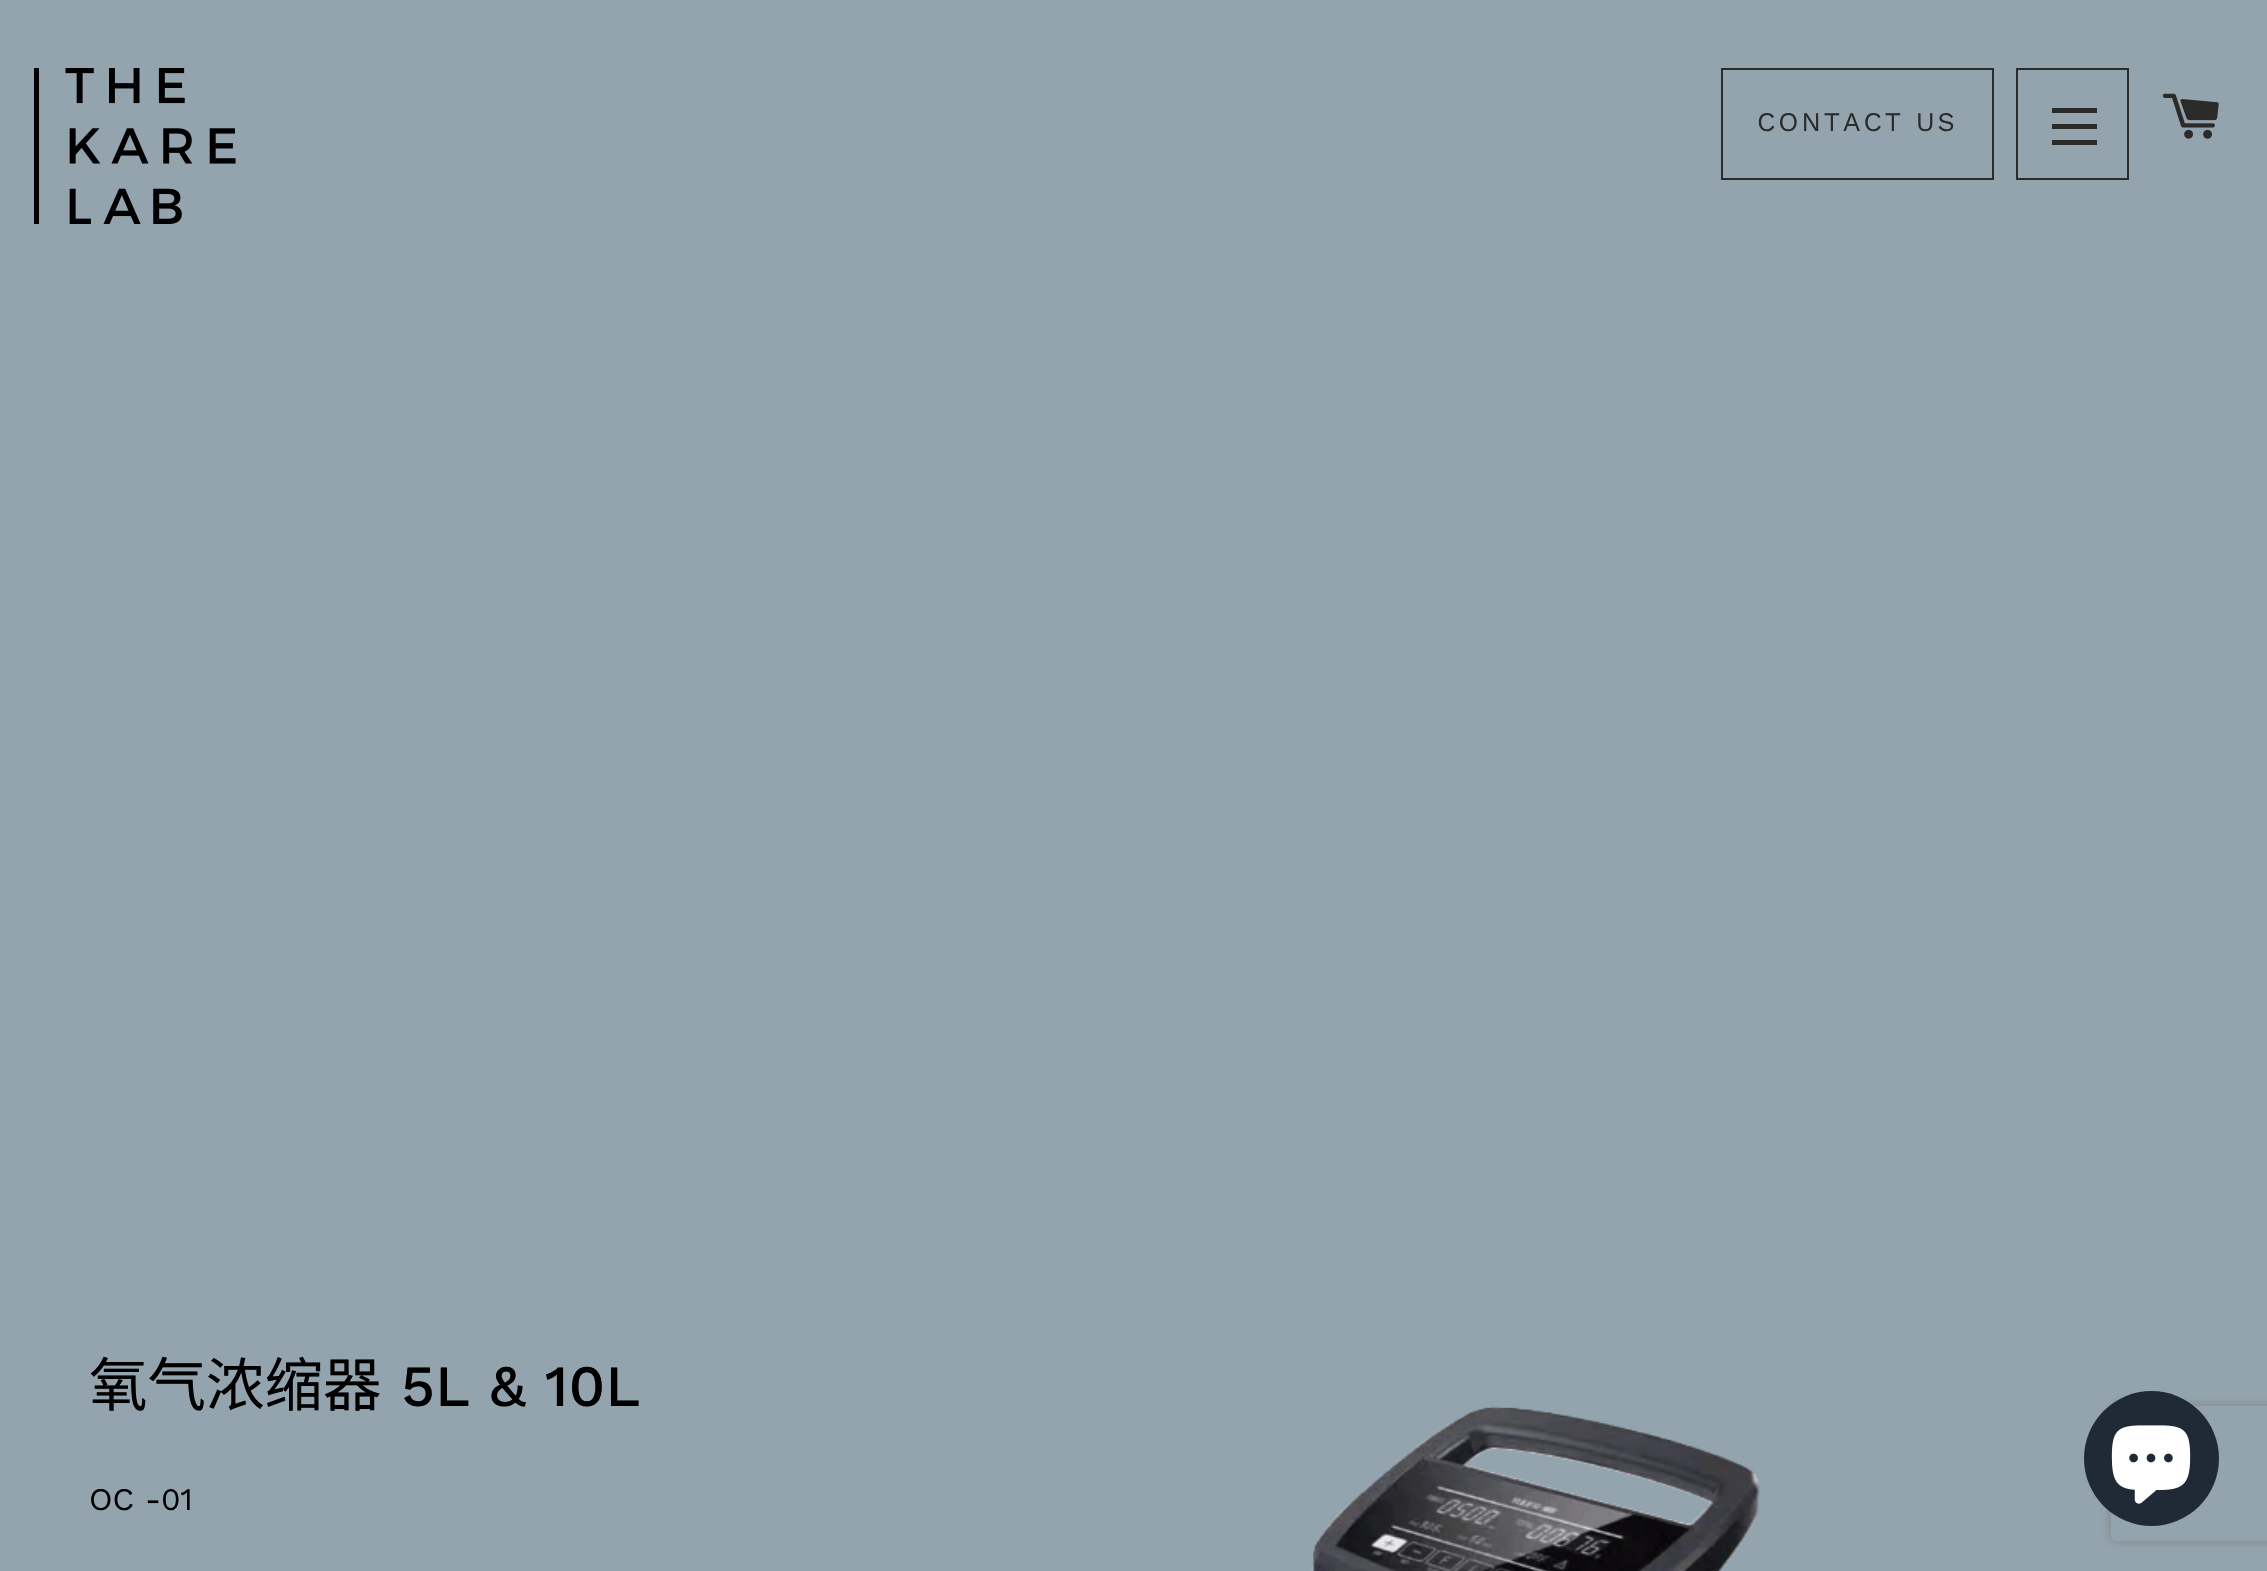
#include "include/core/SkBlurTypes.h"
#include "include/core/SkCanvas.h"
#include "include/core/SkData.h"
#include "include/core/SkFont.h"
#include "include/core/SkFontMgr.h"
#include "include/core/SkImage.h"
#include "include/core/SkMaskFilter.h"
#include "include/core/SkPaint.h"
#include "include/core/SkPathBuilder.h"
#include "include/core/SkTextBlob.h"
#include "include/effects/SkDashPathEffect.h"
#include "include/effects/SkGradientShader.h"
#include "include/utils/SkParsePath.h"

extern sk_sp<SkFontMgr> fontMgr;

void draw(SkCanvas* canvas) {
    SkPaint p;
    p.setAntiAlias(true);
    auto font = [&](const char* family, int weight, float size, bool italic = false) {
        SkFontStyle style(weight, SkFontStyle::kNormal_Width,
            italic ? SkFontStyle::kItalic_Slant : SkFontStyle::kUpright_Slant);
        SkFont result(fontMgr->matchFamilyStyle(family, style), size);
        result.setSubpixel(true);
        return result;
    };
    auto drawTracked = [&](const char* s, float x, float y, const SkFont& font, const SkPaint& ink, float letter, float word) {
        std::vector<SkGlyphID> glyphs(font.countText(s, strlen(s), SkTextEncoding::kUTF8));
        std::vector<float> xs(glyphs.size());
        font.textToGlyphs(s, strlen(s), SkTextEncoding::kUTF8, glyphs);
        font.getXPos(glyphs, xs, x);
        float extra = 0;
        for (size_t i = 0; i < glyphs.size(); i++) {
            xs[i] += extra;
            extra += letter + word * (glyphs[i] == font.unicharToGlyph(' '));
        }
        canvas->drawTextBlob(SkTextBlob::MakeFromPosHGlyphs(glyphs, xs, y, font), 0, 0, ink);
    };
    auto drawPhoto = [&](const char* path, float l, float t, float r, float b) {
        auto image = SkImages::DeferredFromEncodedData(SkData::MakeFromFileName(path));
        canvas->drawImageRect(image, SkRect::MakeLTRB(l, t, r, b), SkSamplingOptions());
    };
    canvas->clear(0xFF93A4AF);
    drawPhoto("media/1.png", 34, 68, 236, 224);
    p.setStyle(SkPaint::kStroke_Style);
    p.setStrokeWidth(2);
    p.setColor(0xFF2B2C29);
    canvas->drawRect(SkRect::MakeLTRB(1722, 69, 1993, 179), p);
    auto font1 = font("Work Sans", 400, 27);
    p.setStyle(SkPaint::kFill_Style);
    drawTracked("CONTACT US", 1757, 131, font1, p, 2.75f, 0);
    p.setStyle(SkPaint::kStroke_Style);
    canvas->drawRect(SkRect::MakeLTRB(2017, 69, 2128, 179), p);
    p.setStyle(SkPaint::kFill_Style);
    {
        const struct { float l, t, r, b; SkColor color; } items[] = {
            {2052, 108, 2097, 113, 0xFF2B2C29},
            {2052, 124, 2097, 129, 0xFF2B2C29},
            {2052, 140, 2097, 145, 0xFF2B2C29},
        };
        for (auto [l, t, r, b, color] : items) {
            p.setColor(color);
            canvas->drawRect(SkRect::MakeLTRB(l, t, r, b), p);
        }
    }
    drawPhoto("media/2.png", 2162, 93, 2219, 139);
    auto font2 = font("Noto Sans CJK SC", 400, 58.5f);
    p.setColor(0xFF000000);
    canvas->drawString("氧气浓缩器", 89, 1406, font2, p);
    auto font3 = font("Work Sans", 500, 58.5f);
    canvas->drawString("5L & 10L", 401, 1406, font3, p);
    auto font4 = font("Work Sans", 400, 31.5f);
    canvas->drawString("OC -01", 89, 1510, font4, p);
    drawPhoto("media/3.png", 1311, 1406, 1760, 1571);
    canvas->save();
    canvas->clipPath(SkPathBuilder(SkPathFillType::kEvenOdd).moveTo(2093, 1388).lineTo(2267, 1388).lineTo(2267, 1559).lineTo(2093, 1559).close().moveTo(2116, 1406).lineTo(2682, 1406).cubicTo(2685, 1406, 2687, 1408, 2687, 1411).lineTo(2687, 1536).cubicTo(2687, 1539, 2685, 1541, 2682, 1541).lineTo(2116, 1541).cubicTo(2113, 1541, 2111, 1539, 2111, 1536).lineTo(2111, 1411).cubicTo(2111, 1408, 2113, 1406, 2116, 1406).close().detach(), true);
    p.setColor(0xFF808080);
    p.setMaskFilter(SkMaskFilter::MakeBlur(kNormal_SkBlurStyle, 5.5f));
    canvas->drawRoundRect(SkRect::MakeLTRB(2111, 1406, 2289, 1541), 5, 5, p);
    p.setMaskFilter(nullptr);
    canvas->restore();
    p.setColor(0xFF202A36);
    canvas->drawCircle(2151.5f, 1458.5f, 67.5f, p);
    drawPhoto("media/4.png", 2111, 1425, 2191, 1504);
}
